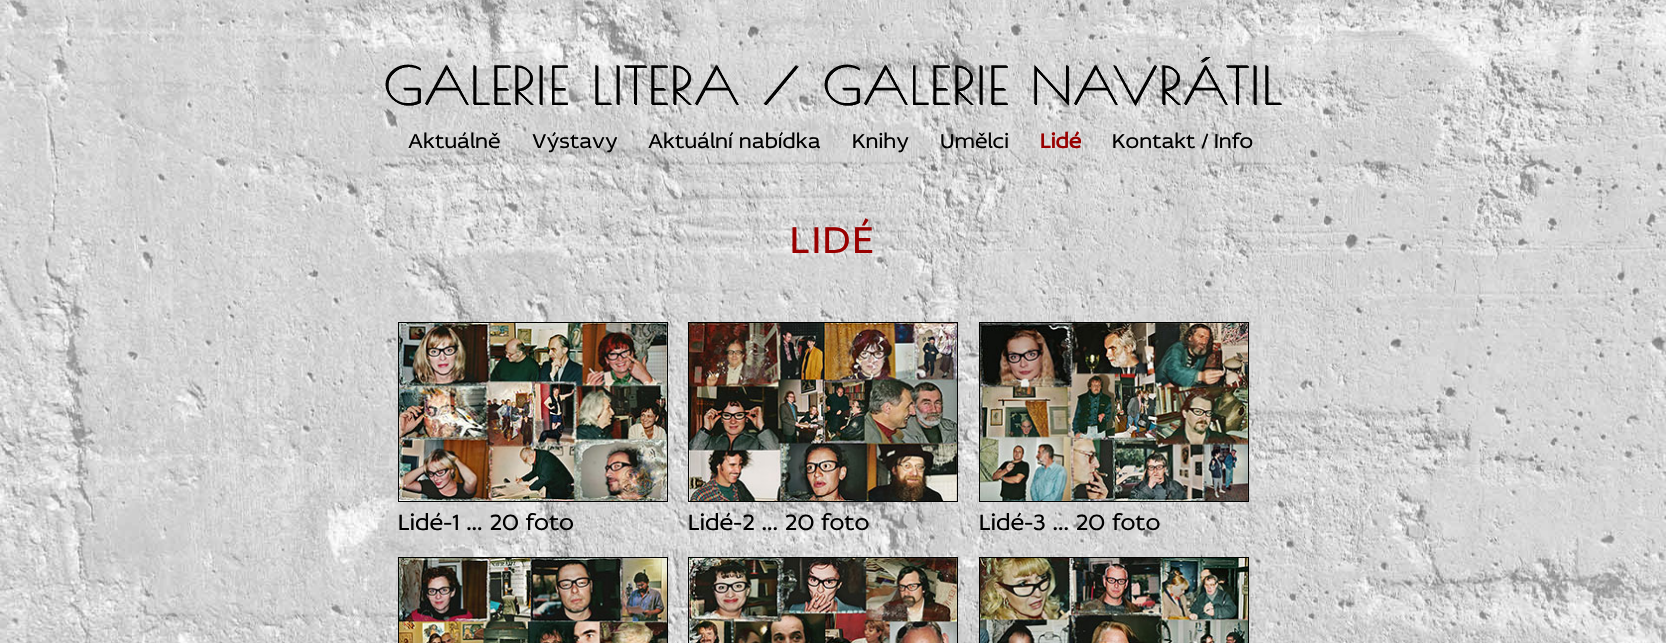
#include "include/core/SkBlurTypes.h"
#include "include/core/SkCanvas.h"
#include "include/core/SkData.h"
#include "include/core/SkFont.h"
#include "include/core/SkFontMgr.h"
#include "include/core/SkImage.h"
#include "include/core/SkMaskFilter.h"
#include "include/core/SkPaint.h"
#include "include/core/SkPathBuilder.h"
#include "include/core/SkTextBlob.h"
#include "include/effects/SkDashPathEffect.h"
#include "include/effects/SkGradientShader.h"
#include "include/utils/SkParsePath.h"

extern sk_sp<SkFontMgr> fontMgr;

void draw(SkCanvas* canvas) {
    SkPaint p;
    p.setAntiAlias(true);
    auto font = [&](const char* family, int weight, float size, bool italic = false) {
        SkFontStyle style(weight, SkFontStyle::kNormal_Width,
            italic ? SkFontStyle::kItalic_Slant : SkFontStyle::kUpright_Slant);
        SkFont result(fontMgr->matchFamilyStyle(family, style), size);
        result.setSubpixel(true);
        return result;
    };
    auto drawTracked = [&](const char* s, float x, float y, const SkFont& font, const SkPaint& ink, float letter, float word) {
        std::vector<SkGlyphID> glyphs(font.countText(s, strlen(s), SkTextEncoding::kUTF8));
        std::vector<float> xs(glyphs.size());
        font.textToGlyphs(s, strlen(s), SkTextEncoding::kUTF8, glyphs);
        font.getXPos(glyphs, xs, x);
        float extra = 0;
        for (size_t i = 0; i < glyphs.size(); i++) {
            xs[i] += extra;
            extra += letter + word * (glyphs[i] == font.unicharToGlyph(' '));
        }
        canvas->drawTextBlob(SkTextBlob::MakeFromPosHGlyphs(glyphs, xs, y, font), 0, 0, ink);
    };
    auto drawPhoto = [&](const char* path, float l, float t, float r, float b) {
        auto image = SkImages::DeferredFromEncodedData(SkData::MakeFromFileName(path));
        canvas->drawImageRect(image, SkRect::MakeLTRB(l, t, r, b), SkSamplingOptions());
    };
    canvas->clear(0xFFFFFFFF);
    drawPhoto("media/1.png", 0, 0, 1666, 643);
    drawPhoto("media/2.png", 385, 57, 1282, 106);
    auto font1 = font("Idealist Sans", 400, 20.5f);
    p.setColor(0xFF000000);
    {
        const struct { const char* s; float x, y; } items[] = {
            {"Aktuálně", 408, 148},
            {"Výstavy", 532, 148},
            {"Aktuální nabídka", 648, 148},
            {"Knihy", 852, 148},
            {"Umělci", 940, 148},
        };
        for (auto [s, x, y] : items) {
            canvas->drawString(s, x, y, font1, p);
        }
    }
    auto font2 = font("Idealist Sans", 700, 20.5f);
    p.setColor(0xFF990000);
    canvas->drawString("Lidé", 1040, 148, font2, p);
    p.setColor(0xFF000000);
    canvas->drawString("Kontakt / Info", 1112, 148, font1, p);
    auto font3 = font("Idealist Sans", 400, 38);
    p.setColor(0xFF990000);
    drawTracked("LIDÉ", 790, 253, font3, p, 2, 0);
    p.setStyle(SkPaint::kStroke_Style);
    p.setStrokeWidth(1);
    p.setColor(0xFF000000);
    canvas->drawRect(SkRect::MakeLTRB(398.5f, 322.5f, 667.5f, 501.5f), p);
    drawPhoto("media/3.png", 399, 323, 667, 501);
    auto font4 = font("Idealist Sans", 400, 22.5f);
    p.setStyle(SkPaint::kFill_Style);
    canvas->drawString("Lidé-1 ... 20 foto", 398, 530, font4, p);
    p.setStyle(SkPaint::kStroke_Style);
    canvas->drawRect(SkRect::MakeLTRB(688.5f, 322.5f, 957.5f, 501.5f), p);
    drawPhoto("media/4.png", 689, 323, 957, 501);
    p.setStyle(SkPaint::kFill_Style);
    canvas->drawString("Lidé-2 ... 20 foto", 688, 530, font4, p);
    p.setStyle(SkPaint::kStroke_Style);
    canvas->drawRect(SkRect::MakeLTRB(979.5f, 322.5f, 1248.5f, 501.5f), p);
    drawPhoto("media/5.png", 980, 323, 1248, 501);
    p.setStyle(SkPaint::kFill_Style);
    canvas->drawString("Lidé-3 ... 20 foto", 979, 530, font4, p);
    p.setStyle(SkPaint::kStroke_Style);
    canvas->drawRect(SkRect::MakeLTRB(398.5f, 557.5f, 667.5f, 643.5f), p);
    drawPhoto("media/6.png", 399, 558, 667, 643);
    canvas->drawRect(SkRect::MakeLTRB(688.5f, 557.5f, 957.5f, 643.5f), p);
    drawPhoto("media/7.png", 689, 558, 957, 643);
    canvas->drawRect(SkRect::MakeLTRB(979.5f, 557.5f, 1248.5f, 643.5f), p);
    drawPhoto("media/8.png", 980, 558, 1248, 643);
}
